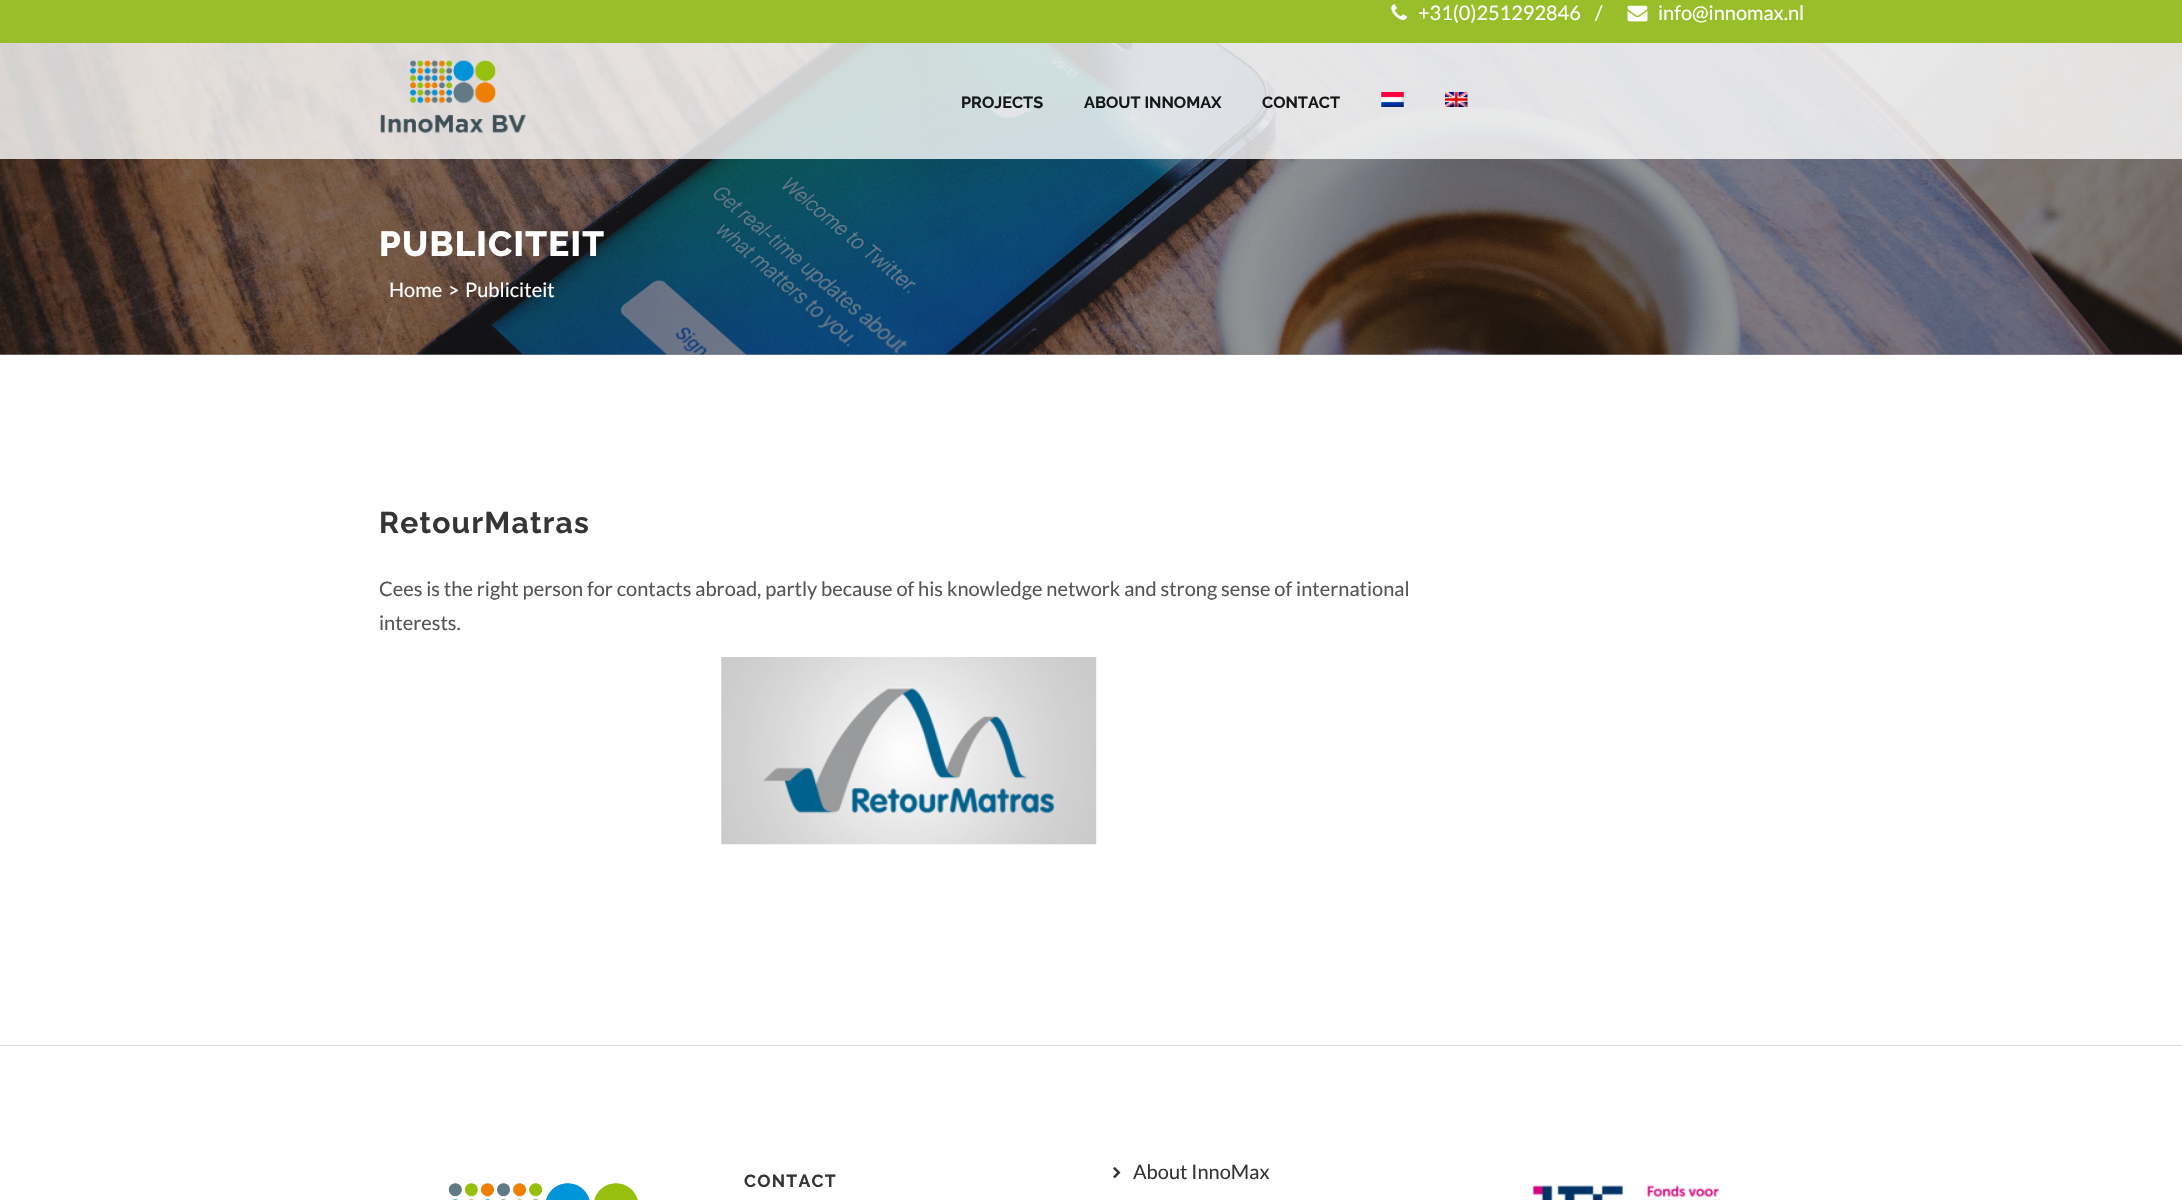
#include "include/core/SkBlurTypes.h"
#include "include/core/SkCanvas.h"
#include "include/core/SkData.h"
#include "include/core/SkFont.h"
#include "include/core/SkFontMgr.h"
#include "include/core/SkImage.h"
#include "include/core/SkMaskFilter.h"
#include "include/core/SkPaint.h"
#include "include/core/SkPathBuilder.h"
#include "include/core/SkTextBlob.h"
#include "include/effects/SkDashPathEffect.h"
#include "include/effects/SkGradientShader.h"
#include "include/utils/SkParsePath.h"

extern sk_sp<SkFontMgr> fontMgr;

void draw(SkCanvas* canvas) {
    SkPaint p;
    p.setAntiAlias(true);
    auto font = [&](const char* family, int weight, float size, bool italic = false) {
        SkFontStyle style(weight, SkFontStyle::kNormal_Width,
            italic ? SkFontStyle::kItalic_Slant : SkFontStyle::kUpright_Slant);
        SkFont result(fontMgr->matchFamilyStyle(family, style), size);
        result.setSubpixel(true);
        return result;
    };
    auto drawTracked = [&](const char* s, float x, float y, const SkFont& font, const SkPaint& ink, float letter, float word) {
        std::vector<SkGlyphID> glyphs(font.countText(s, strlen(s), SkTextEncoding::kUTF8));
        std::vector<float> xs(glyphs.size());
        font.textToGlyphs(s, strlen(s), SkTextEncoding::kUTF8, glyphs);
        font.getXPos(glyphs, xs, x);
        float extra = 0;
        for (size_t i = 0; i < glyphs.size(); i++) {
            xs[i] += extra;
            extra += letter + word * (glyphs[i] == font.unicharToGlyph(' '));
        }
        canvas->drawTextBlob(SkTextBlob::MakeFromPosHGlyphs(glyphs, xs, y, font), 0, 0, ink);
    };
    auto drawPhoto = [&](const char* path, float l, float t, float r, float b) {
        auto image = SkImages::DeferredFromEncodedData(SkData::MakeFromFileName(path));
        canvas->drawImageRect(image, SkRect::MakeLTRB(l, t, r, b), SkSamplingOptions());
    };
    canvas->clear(0xFFFFFFFF);
    p.setColor(0xFF999999);
    canvas->drawRect(SkRect::MakeLTRB(0, 354, 2182, 355), p);
    p.setColor(0xFF98BE29);
    canvas->drawRect(SkRect::MakeLTRB(0, 0, 2182, 43), p);
    drawPhoto("media/1.png", 1391, 4, 1407, 20);
    auto font1 = font("Lato", 400, 20);
    p.setColor(0xFFFFFFFF);
    canvas->drawString("+31(0)251292846", 1418, 20, font1, p);
    canvas->drawString("/", 1595, 20, font1, p);
    drawPhoto("media/2.png", 1627, 5, 1648, 22);
    canvas->drawString("info@innomax.nl", 1658, 20, font1, p);
    drawPhoto("media/6.png", 0, 43, 2182, 355);
    p.setColor(0xCCFFFFFF);
    canvas->drawRect(SkRect::MakeLTRB(0, 43, 2182, 159), p);
    drawPhoto("media/3.png", 380, 60, 527, 133);
    auto font2 = font("Raleway", 700, 16.25f);
    p.setColor(0xFF171819);
    {
        const struct { const char* s; float x, y; } items[] = {
            {"PROJECTS", 961, 108},
            {"ABOUT INNOMAX", 1084, 108},
            {"CONTACT", 1262, 108},
        };
        for (auto [s, x, y] : items) {
            canvas->drawString(s, x, y, font2, p);
        }
    }
    drawPhoto("media/4.png", 1381, 92, 1404, 107);
    drawPhoto("media/5.png", 1445, 92, 1468, 107);
    auto font3 = font("Raleway", 800, 35);
    p.setColor(0xFFFFFFFF);
    drawTracked("PUBLICITEIT", 379, 256, font3, p, 1.25f, 0);
    {
        const struct { const char* s; float x, y; } items[] = {
            {"Home", 389, 297},
            {">", 448, 297},
            {"Publiciteit", 465, 297},
        };
        for (auto [s, x, y] : items) {
            canvas->drawString(s, x, y, font1, p);
        }
    }
    auto font4 = font("Raleway", 700, 30);
    p.setColor(0xFF353535);
    drawTracked("RetourMatras", 379, 533, font4, p, 1.25f, 0);
    p.setColor(0xFF555555);
    canvas->drawString("Cees is the right person for contacts abroad, partly because of his knowledge network and strong sense of international", 379, 596, font1, p);
    canvas->drawString("interests.", 379, 630, font1, p);
    drawPhoto("media/7.png", 721, 657, 1097, 845);
    p.setColor(0xFFDDDDDD);
    canvas->drawRect(SkRect::MakeLTRB(0, 1045, 2182, 1046), p);
    auto font5 = font("Raleway", 700, 17.5f);
    p.setColor(0xFF353535);
    drawTracked("CONTACT", 744, 1187, font5, p, 1.25f, 0);
    drawPhoto("media/8.png", 1113, 1167, 1121, 1179);
    canvas->drawString("About InnoMax", 1133, 1179, font1, p);
    drawPhoto("media/9.png", 448, 1183, 638, 1200);
    drawPhoto("media/10.png", 1532, 1185, 1721, 1200);
}
